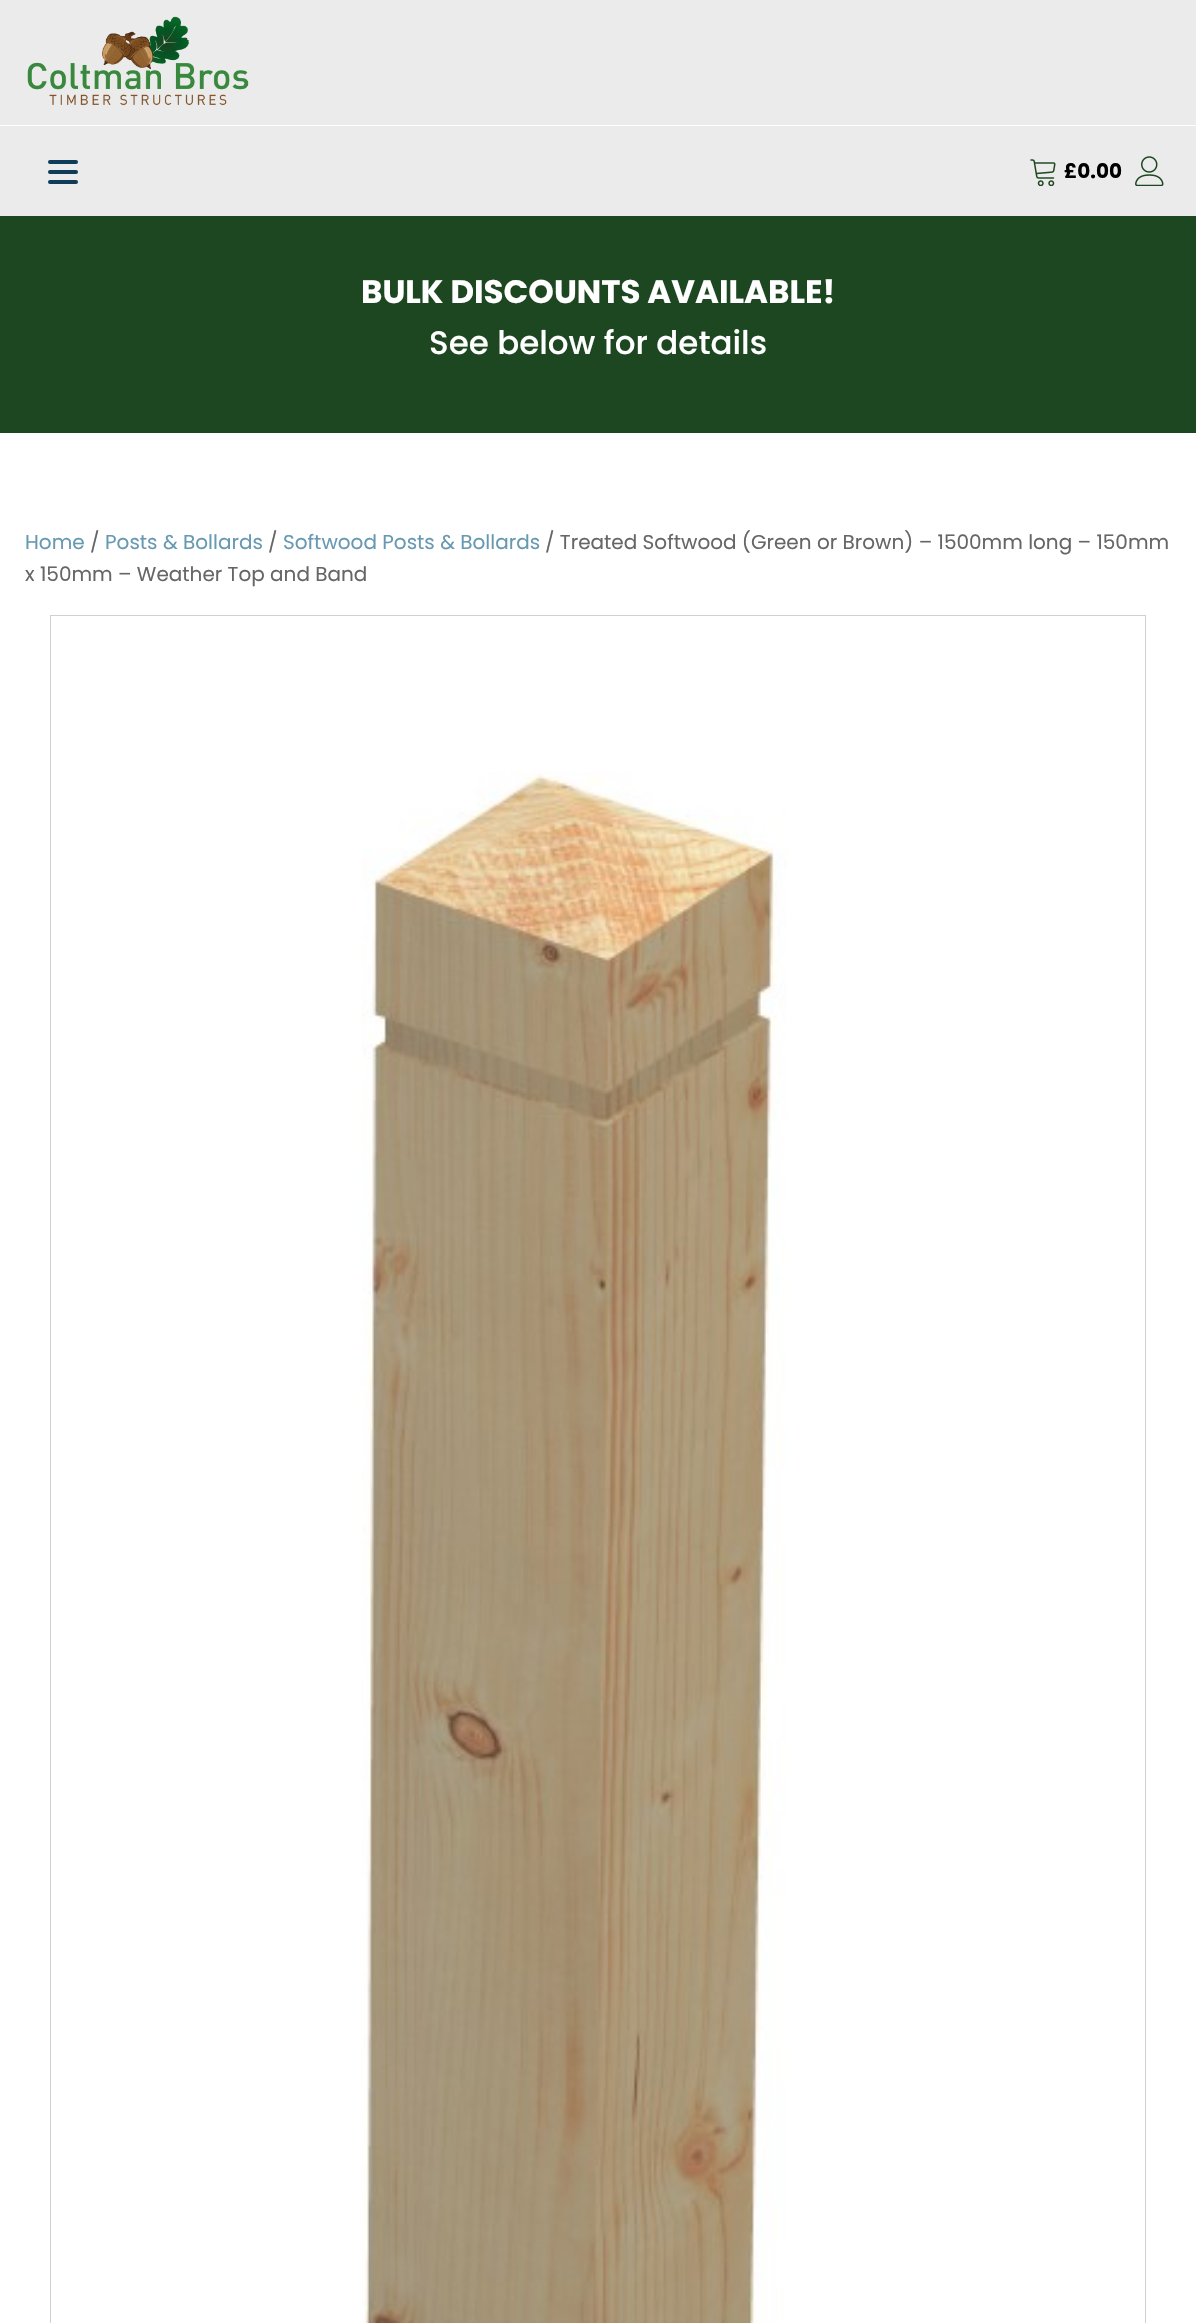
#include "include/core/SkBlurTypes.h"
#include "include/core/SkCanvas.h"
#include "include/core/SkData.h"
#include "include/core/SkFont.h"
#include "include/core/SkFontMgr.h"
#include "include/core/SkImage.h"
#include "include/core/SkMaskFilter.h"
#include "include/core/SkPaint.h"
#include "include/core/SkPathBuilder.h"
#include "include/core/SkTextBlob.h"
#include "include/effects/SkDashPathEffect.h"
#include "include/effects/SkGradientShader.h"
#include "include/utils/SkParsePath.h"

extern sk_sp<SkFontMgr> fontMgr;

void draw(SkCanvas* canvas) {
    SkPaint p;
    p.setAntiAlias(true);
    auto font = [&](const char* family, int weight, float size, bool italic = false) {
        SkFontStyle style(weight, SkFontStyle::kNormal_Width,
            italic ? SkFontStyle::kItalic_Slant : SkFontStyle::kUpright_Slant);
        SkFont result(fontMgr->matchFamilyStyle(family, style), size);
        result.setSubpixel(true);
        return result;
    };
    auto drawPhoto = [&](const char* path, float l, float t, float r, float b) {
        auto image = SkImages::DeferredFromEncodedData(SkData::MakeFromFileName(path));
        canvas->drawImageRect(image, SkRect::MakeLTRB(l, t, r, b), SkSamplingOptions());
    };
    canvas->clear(0xFFFFFFFF);
    p.setColor(0xFFEBEBEB);
    canvas->drawRect(SkRect::MakeLTRB(0, 0, 1196, 125), p);
    drawPhoto("media/1.png", 27, 16, 249, 106);
    canvas->drawRect(SkRect::MakeLTRB(0, 126, 1196, 216), p);
    p.setColor(0xFF0F3D59);
    canvas->drawRoundRect(SkRect::MakeLTRB(48, 160, 78, 164), 2, 2, p);
    canvas->drawRoundRect(SkRect::MakeLTRB(48, 170, 78, 174), 2, 2, p);
    canvas->drawRoundRect(SkRect::MakeLTRB(48, 180, 78, 184), 2, 2, p);
    drawPhoto("media/2.png", 1030, 159, 1056, 186);
    auto font1 = font("Poppins", 700, 20);
    p.setColor(0xFF000000);
    canvas->drawString("£0.00", 1064, 178, font1, p);
    drawPhoto("media/3.png", 1135, 156, 1164, 186);
    p.setColor(0xFF1D4721);
    canvas->drawRect(SkRect::MakeLTRB(0, 216, 1196, 433), p);
    auto font2 = font("Poppins", 700, 32.5f);
    p.setColor(0xFFFFFFFF);
    canvas->drawString("BULK DISCOUNTS AVAILABLE!", 361, 303, font2, p);
    auto font3 = font("Poppins", 500, 32.5f);
    canvas->drawString("See below for details", 429, 354, font3, p);
    auto font4 = font("Poppins", 400, 20);
    p.setColor(0xFF6799B2);
    canvas->drawString("Home", 25, 549, font4, p);
    p.setColor(0xFF666666);
    canvas->drawString("/", 90, 549, font4, p);
    p.setColor(0xFF6799B2);
    canvas->drawString("Posts & Bollards", 105, 549, font4, p);
    p.setColor(0xFF666666);
    canvas->drawString("/", 268, 549, font4, p);
    p.setColor(0xFF6799B2);
    canvas->drawString("Softwood Posts & Bollards", 283, 549, font4, p);
    p.setColor(0xFF666666);
    canvas->drawString("/ Treated Softwood (Green or Brown) – 1500mm long – 150mm", 545, 549, font4, p);
    canvas->drawString("x 150mm – Weather Top and Band", 25, 581, font4, p);
    p.setStyle(SkPaint::kStroke_Style);
    p.setStrokeWidth(1);
    p.setColor(0xFFD3CED2);
    canvas->drawRect(SkRect::MakeLTRB(50.5f, 615.5f, 1145.5f, 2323.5f), p);
    drawPhoto("media/4.png", 361, 772, 787, 2323);
}
